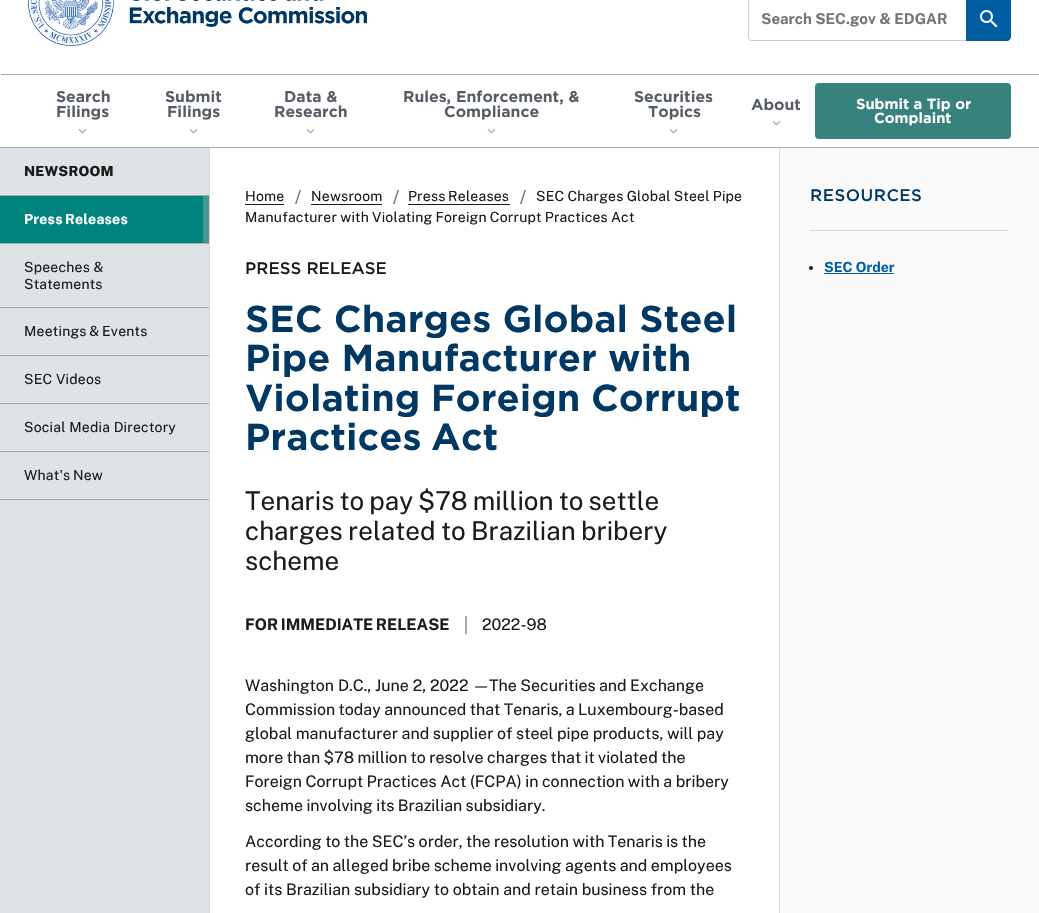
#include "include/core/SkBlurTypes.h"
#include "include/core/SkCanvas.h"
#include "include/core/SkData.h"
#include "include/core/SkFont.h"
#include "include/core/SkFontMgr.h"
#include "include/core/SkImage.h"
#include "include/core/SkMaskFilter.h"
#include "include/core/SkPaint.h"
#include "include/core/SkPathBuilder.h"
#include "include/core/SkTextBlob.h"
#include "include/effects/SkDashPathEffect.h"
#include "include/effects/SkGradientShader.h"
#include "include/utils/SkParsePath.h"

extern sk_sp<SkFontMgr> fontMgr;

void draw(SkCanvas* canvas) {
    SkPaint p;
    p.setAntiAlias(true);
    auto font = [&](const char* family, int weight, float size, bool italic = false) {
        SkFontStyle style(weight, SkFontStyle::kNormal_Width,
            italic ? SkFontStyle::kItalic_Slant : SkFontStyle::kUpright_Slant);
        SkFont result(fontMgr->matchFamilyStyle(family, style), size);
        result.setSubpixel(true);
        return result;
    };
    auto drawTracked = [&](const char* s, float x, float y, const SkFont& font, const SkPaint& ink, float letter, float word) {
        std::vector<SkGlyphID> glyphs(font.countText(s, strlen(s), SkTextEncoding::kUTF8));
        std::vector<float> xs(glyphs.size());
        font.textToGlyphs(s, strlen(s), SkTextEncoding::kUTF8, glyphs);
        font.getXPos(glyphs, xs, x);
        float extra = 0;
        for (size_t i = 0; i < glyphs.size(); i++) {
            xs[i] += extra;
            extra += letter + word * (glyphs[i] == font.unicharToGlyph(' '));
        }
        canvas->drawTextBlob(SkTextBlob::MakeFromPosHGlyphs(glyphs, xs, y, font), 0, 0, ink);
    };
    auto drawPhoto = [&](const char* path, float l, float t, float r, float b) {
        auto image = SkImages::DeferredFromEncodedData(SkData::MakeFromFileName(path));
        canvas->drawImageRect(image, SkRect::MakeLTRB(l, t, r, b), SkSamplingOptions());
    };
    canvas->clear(0xFFFFFFFF);
    p.setColor(0xFFA7AAAC);
    canvas->drawRect(SkRect::MakeLTRB(0, 147, 1039, 148), p);
    drawPhoto("media/1.png", 28, 0, 367, 46);
    p.setColor(0xFFC6CACE);
    canvas->drawPath(SkPathBuilder(SkPathFillType::kEvenOdd).moveTo(752, -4).lineTo(966, -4).lineTo(966, 41).lineTo(752, 41).cubicTo(750, 41, 748, 39, 748, 37).lineTo(748, 0).cubicTo(748, -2, 750, -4, 752, -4).close().moveTo(752, -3).lineTo(966, -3).lineTo(966, 40).lineTo(752, 40).cubicTo(750, 40, 749, 39, 749, 37).lineTo(749, 0).cubicTo(749, -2, 750, -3, 752, -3).close().detach(), p);
    auto font1 = font("Public Sans", 700, 15);
    p.setColor(0xFF757575);
    canvas->drawString("Search SEC.gov & EDGAR", 761, 24, font1, p);
    p.setColor(0xFF005EA2);
    canvas->drawPath(SkPathBuilder().moveTo(966, -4).lineTo(1007, -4).cubicTo(1009, -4, 1011, -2, 1011, 0).lineTo(1011, 37).cubicTo(1011, 39, 1009, 41, 1007, 41).lineTo(966, 41).close().detach(), p);
    drawPhoto("media/2.png", 980, 10, 998, 28);
    p.setColor(0xFFA7AAAC);
    canvas->drawRect(SkRect::MakeLTRB(1, 74, 1039, 75), p);
    auto font2 = font("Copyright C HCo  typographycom", 400, 15);
    p.setColor(0xFF565C65);
    canvas->drawString("Search", 56, 102, font2, p);
    canvas->drawString("Filings", 56, 117, font2, p);
    drawPhoto("media/3.png", 78, 128, 87, 134);
    canvas->drawString("Submit", 165, 102, font2, p);
    canvas->drawString("Filings", 167, 117, font2, p);
    drawPhoto("media/3.png", 189, 128, 198, 134);
    canvas->drawString("Data &", 284, 102, font2, p);
    canvas->drawString("Research", 274, 117, font2, p);
    drawPhoto("media/3.png", 306, 128, 315, 134);
    canvas->drawString("Rules, Enforcement, &", 403, 102, font2, p);
    canvas->drawString("Compliance", 444, 117, font2, p);
    drawPhoto("media/3.png", 487, 128, 496, 134);
    canvas->drawString("Securities", 634, 102, font2, p);
    canvas->drawString("Topics", 648, 117, font2, p);
    drawPhoto("media/3.png", 669, 128, 678, 134);
    canvas->drawString("About", 751, 110, font2, p);
    drawPhoto("media/3.png", 772, 120, 781, 126);
    p.setColor(0xFF37827D);
    canvas->drawRoundRect(SkRect::MakeLTRB(815, 83, 1011, 139), 4, 4, p);
    auto font3 = font("Copyright C HCo  typographycom", 400, 14);
    p.setColor(0xFFFFFFFF);
    canvas->drawString("Submit a Tip or", 856, 109, font3, p);
    canvas->drawString("Complaint", 874, 123, font3, p);
    {
        const struct { float l, t, r, b; SkColor color; } items[] = {
            {0, 500, 209, 913, 0xFFDFE3E5},
            {209, 148, 210, 913, 0xFFD9D9D9},
            {0, 148, 209, 499, 0xFFDFE3E5},
            {0, 195, 209, 196, 0xFFA7AAAC},
        };
        for (auto [l, t, r, b, color] : items) {
            p.setColor(color);
            canvas->drawRect(SkRect::MakeLTRB(l, t, r, b), p);
        }
    }
    auto font4 = font("Public Sans", 800, 14);
    p.setColor(0xFF1B1B1B);
    drawTracked("NEWSROOM", 24, 176, font4, p, 0.2f, 0);
    {
        const struct { float l, t, r, b; SkColor color; } items[] = {
            {0, 243, 209, 244, 0xFFA7AAAC},
            {0, 196, 203, 243, 0xFF00847D},
            {203, 196, 209, 243, 0xFF419892},
        };
        for (auto [l, t, r, b, color] : items) {
            p.setColor(color);
            canvas->drawRect(SkRect::MakeLTRB(l, t, r, b), p);
        }
    }
    auto font5 = font("Public Sans", 700, 14);
    p.setColor(0xFFFFFFFF);
    drawTracked("Press Releases", 24, 224, font5, p, 0.2f, -1);
    p.setColor(0xFFA7AAAC);
    canvas->drawRect(SkRect::MakeLTRB(0, 307, 209, 308), p);
    auto font6 = font("Public Sans", 400, 14);
    p.setColor(0xFF1B1B1B);
    drawTracked("Speeches &", 24, 272, font6, p, 0.2f, 0);
    drawTracked("Statements", 24, 289, font6, p, 0.2f, 0);
    p.setColor(0xFFA7AAAC);
    canvas->drawRect(SkRect::MakeLTRB(0, 355, 209, 356), p);
    p.setColor(0xFF1B1B1B);
    drawTracked("Meetings & Events", 24, 336, font6, p, 0.2f, -1);
    p.setColor(0xFFA7AAAC);
    canvas->drawRect(SkRect::MakeLTRB(0, 403, 209, 404), p);
    p.setColor(0xFF1B1B1B);
    drawTracked("SEC Videos", 24, 384, font6, p, 0.2f, 0);
    p.setColor(0xFFA7AAAC);
    canvas->drawRect(SkRect::MakeLTRB(0, 451, 209, 452), p);
    p.setColor(0xFF1B1B1B);
    drawTracked("Social Media Directory", 24, 432, font6, p, 0.2f, 0);
    p.setColor(0xFFA7AAAC);
    canvas->drawRect(SkRect::MakeLTRB(0, 499, 209, 500), p);
    p.setColor(0xFF1B1B1B);
    drawTracked("What's New", 24, 480, font6, p, 0.2f, -1);
    drawTracked("Home", 245, 201, font6, p, 0.2f, 0);
    canvas->drawRect(SkRect::MakeLTRB(245, 204, 284, 205), p);
    p.setColor(0xFF71767A);
    canvas->drawPath(SkPathBuilder().moveTo(295, 204).lineTo(296.5f, 204).lineTo(301, 190).lineTo(299.5f, 190).close().detach(), p);
    p.setColor(0xFF1B1B1B);
    drawTracked("Newsroom", 311, 201, font6, p, 0.2f, 0);
    canvas->drawRect(SkRect::MakeLTRB(311, 204, 382, 205), p);
    p.setColor(0xFF71767A);
    canvas->drawPath(SkPathBuilder().moveTo(393, 204).lineTo(394.5f, 204).lineTo(399, 190).lineTo(397.5f, 190).close().detach(), p);
    p.setColor(0xFF1B1B1B);
    drawTracked("Press Releases", 408, 201, font6, p, 0.2f, -1);
    canvas->drawRect(SkRect::MakeLTRB(408, 204, 510, 205), p);
    p.setColor(0xFF71767A);
    canvas->drawPath(SkPathBuilder().moveTo(520, 204).lineTo(521.5f, 204).lineTo(526, 190).lineTo(524.5f, 190).close().detach(), p);
    p.setColor(0xFF1B1B1B);
    drawTracked("SEC Charges Global Steel Pipe", 536, 201, font6, p, 0.2f, -0.5f);
    drawTracked("Manufacturer with Violating Foreign Corrupt Practices Act", 245, 222, font6, p, 0.2f, -0.5f);
    auto font7 = font("Copyright C HCo  typographycom", 300, 16);
    canvas->drawString("PRESS RELEASE", 245, 274, font7, p);
    auto font8 = font("Copyright C HCo  typographycom", 400, 36);
    p.setColor(0xFF003864);
    drawTracked("SEC Charges Global Steel", 245, 332, font8, p, 0, -0.4f);
    drawTracked("Pipe Manufacturer with", 245, 371, font8, p, 0, -0.5f);
    drawTracked("Violating Foreign Corrupt", 245, 411, font8, p, 0, -1);
    drawTracked("Practices Act", 245, 450, font8, p, 0, -2);
    auto font9 = font("Public Sans", 400, 26);
    p.setColor(0xFF1B1B1B);
    drawTracked("Tenaris to pay $78 million to settle", 245, 510, font9, p, 0, -1.25f);
    drawTracked("charges related to Brazilian bribery", 245, 540, font9, p, 0, -1);
    canvas->drawString("scheme", 245, 570, font9, p);
    p.setColor(0xFFA7AAAC);
    canvas->drawRect(SkRect::MakeLTRB(465, 616, 467, 634), p);
    auto font10 = font("Public Sans", 700, 16);
    p.setColor(0xFF1B1B1B);
    drawTracked("FOR IMMEDIATE RELEASE", 245, 630, font10, p, 0, -1);
    auto font11 = font("Public Sans", 400, 16);
    canvas->drawString("2022-98", 482, 630, font11, p);
    canvas->drawString("Washington D.C., June 2, 2022 —", 245, 691, font11, p);
    drawTracked("The Securities and Exchange", 489, 691, font11, p, 0, -0.5f);
    drawTracked("Commission today announced that Tenaris, a Luxembourg-based", 245, 715, font11, p, 0, -0.5f);
    drawTracked("global manufacturer and supplier of steel pipe products, will pay", 245, 739, font11, p, 0, -0.25f);
    drawTracked("more than $78 million to resolve charges that it violated the", 245, 763, font11, p, 0, -0.5f);
    drawTracked("Foreign Corrupt Practices Act (FCPA) in connection with a bribery", 245, 787, font11, p, 0, -0.4f);
    {
        const struct { const char* s; float x, y; } items[] = {
            {"scheme involving its Brazilian subsidiary.", 245, 811},
            {"According to the SEC’s order, the resolution with Tenaris is the", 245, 847},
            {"result of an alleged bribe scheme involving agents and employees", 245, 871},
        };
        for (auto [s, x, y] : items) {
            drawTracked(s, x, y, font11, p, 0, -0.5f);
        }
    }
    drawTracked("of its Brazilian subsidiary to obtain and retain business from the", 245, 895, font11, p, 0, -0.25f);
    {
        const struct { float l, t, r, b; SkColor color; } items[] = {
            {780, 148, 1039, 913, 0xFFFAFAFA},
            {779, 148, 780, 913, 0xFFD9D9D9},
            {810, 230, 1009, 231, 0xFFD9D9D9},
        };
        for (auto [l, t, r, b, color] : items) {
            p.setColor(color);
            canvas->drawRect(SkRect::MakeLTRB(l, t, r, b), p);
        }
    }
    p.setColor(0xFF003864);
    drawTracked("RESOURCES", 810, 201, font7, p, 0.5f, 0);
    p.setColor(0xFF1B1B1B);
    canvas->drawCircle(811, 268, 2, p);
    p.setColor(0xFF005EA2);
    canvas->drawString("SEC Order", 824, 272, font5, p);
    canvas->drawRect(SkRect::MakeLTRB(824, 273, 894, 274), p);
}
